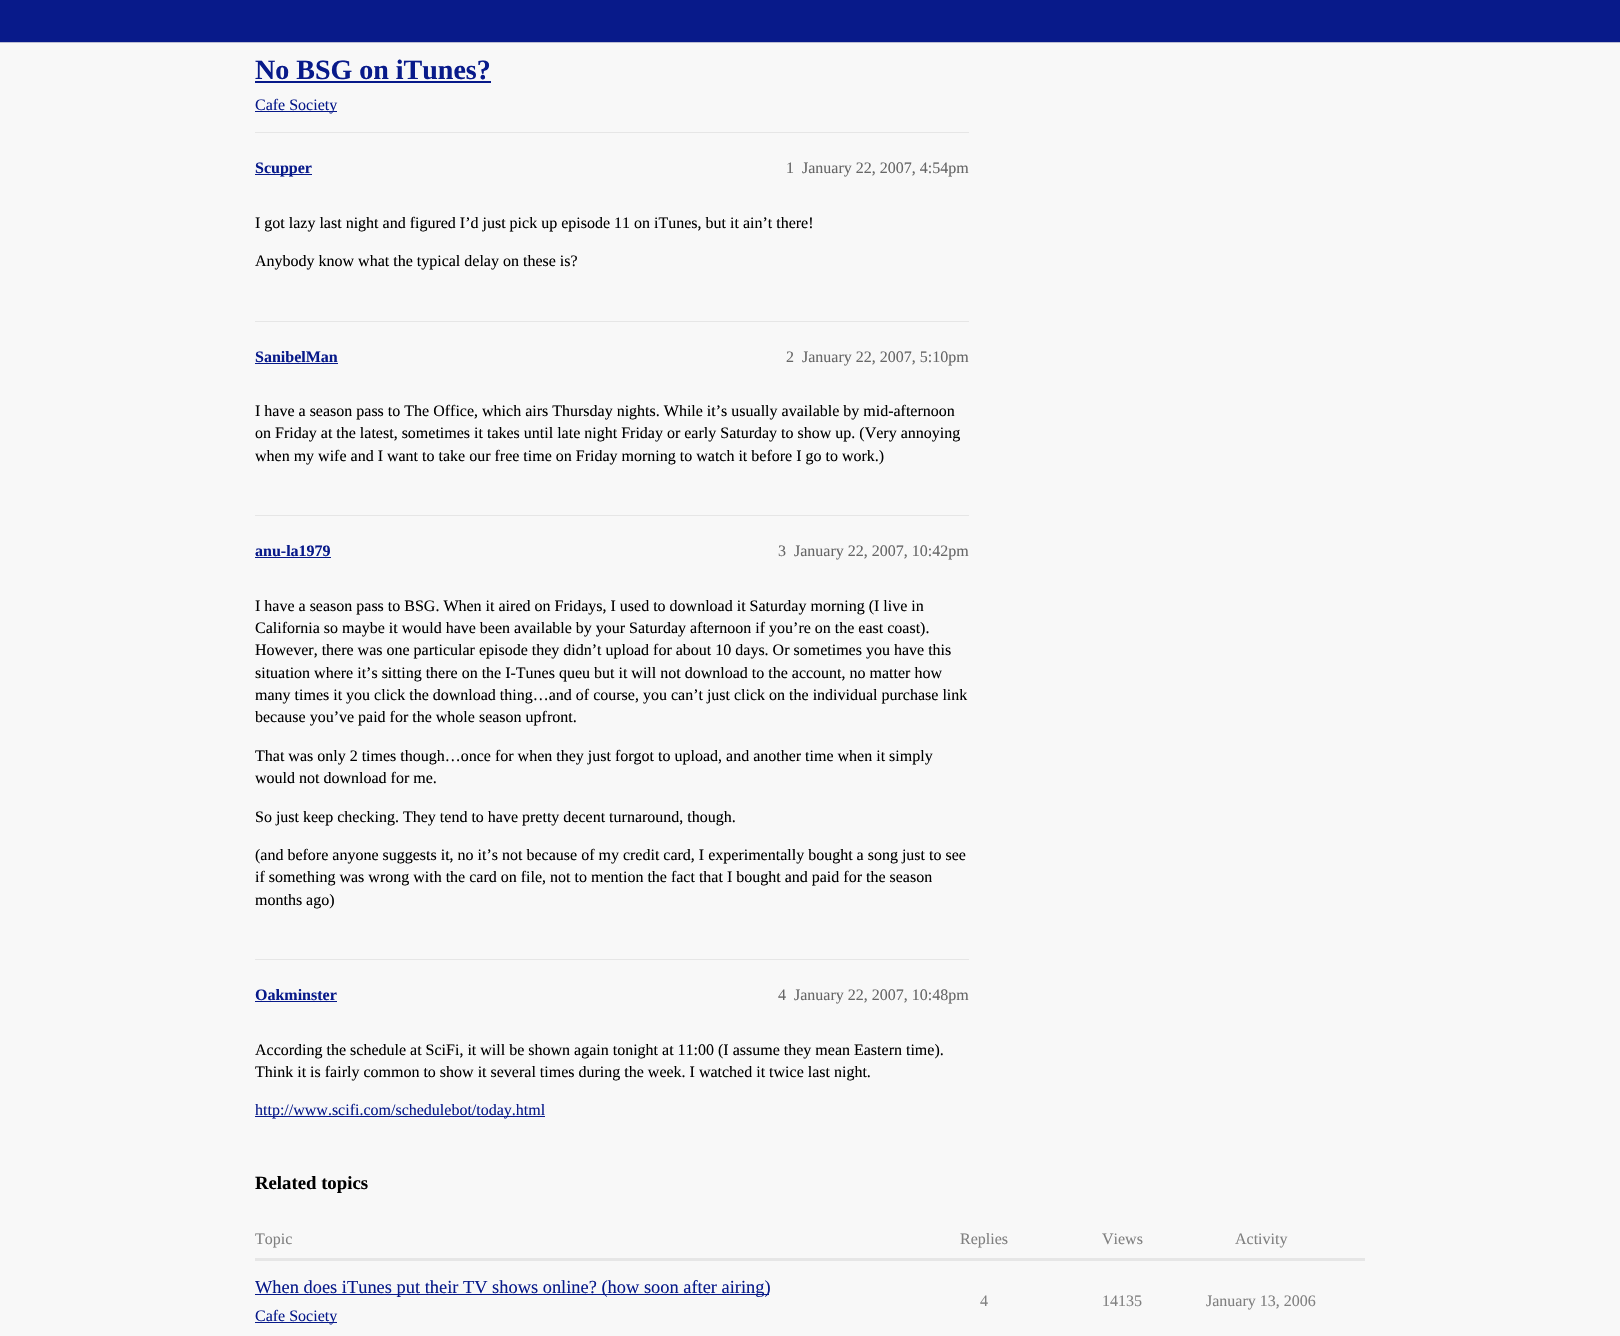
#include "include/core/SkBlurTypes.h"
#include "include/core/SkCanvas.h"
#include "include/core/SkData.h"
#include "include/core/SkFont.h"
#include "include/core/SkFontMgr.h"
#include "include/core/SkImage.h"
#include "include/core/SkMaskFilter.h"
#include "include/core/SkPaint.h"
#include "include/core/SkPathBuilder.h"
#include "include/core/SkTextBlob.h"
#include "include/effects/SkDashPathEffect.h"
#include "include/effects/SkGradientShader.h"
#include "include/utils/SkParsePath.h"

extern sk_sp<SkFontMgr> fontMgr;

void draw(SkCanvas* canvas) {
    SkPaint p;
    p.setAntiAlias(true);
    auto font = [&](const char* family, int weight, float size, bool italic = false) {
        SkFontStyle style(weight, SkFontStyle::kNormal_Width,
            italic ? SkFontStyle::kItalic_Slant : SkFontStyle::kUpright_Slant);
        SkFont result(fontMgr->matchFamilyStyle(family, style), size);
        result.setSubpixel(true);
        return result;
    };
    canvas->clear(0xFFF8F8F8);
    p.setColor(0xFF081A8A);
    canvas->drawRect(SkRect::MakeLTRB(0, 0, 1620, 42), p);
    p.setColor(0xFFBDBED3);
    canvas->drawRect(SkRect::MakeLTRB(0, 42, 1620, 43), p);
    auto font1 = font("Liberation Serif", 700, 28);
    p.setColor(0xFF081A8A);
    canvas->drawString("No BSG on iTunes?", 255, 79, font1, p);
    canvas->drawRect(SkRect::MakeLTRB(255, 81, 491, 83), p);
    canvas->drawRect(SkRect::MakeLTRB(255, 111, 337, 112), p);
    auto font2 = font("Liberation Serif", 400, 16);
    canvas->drawString("Cafe Society", 255, 110, font2, p);
    p.setColor(0xFFE6E6E6);
    canvas->drawRect(SkRect::MakeLTRB(255, 132, 969, 133), p);
    p.setColor(0xFF081A8A);
    canvas->drawRect(SkRect::MakeLTRB(255, 174, 312, 175), p);
    auto font3 = font("Liberation Serif", 700, 16);
    canvas->drawString("Scupper", 255, 173, font3, p);
    p.setColor(0xFF666666);
    canvas->drawString("1", 786, 173, font2, p);
    canvas->drawString("January 22, 2007, 4:54pm", 802, 173, font2, p);
    p.setColor(0xFF000000);
    canvas->drawString("I got lazy last night and figured I’d just pick up episode 11 on iTunes, but it ain’t there!", 255, 228, font2, p);
    canvas->drawString("Anybody know what the typical delay on these is?", 255, 266, font2, p);
    p.setColor(0xFFE6E6E6);
    canvas->drawRect(SkRect::MakeLTRB(255, 321, 969, 322), p);
    p.setColor(0xFF081A8A);
    canvas->drawString("SanibelMan", 255, 362, font3, p);
    canvas->drawRect(SkRect::MakeLTRB(255, 363, 338, 364), p);
    p.setColor(0xFF666666);
    canvas->drawString("2", 786, 362, font2, p);
    canvas->drawString("January 22, 2007, 5:10pm", 802, 362, font2, p);
    p.setColor(0xFF000000);
    {
        const struct { const char* s; float x, y; } items[] = {
            {"I have a season pass to The Office, which airs Thursday nights. While it’s usually available by mid-afternoon", 255, 416},
            {"on Friday at the latest, sometimes it takes until late night Friday or early Saturday to show up. (Very annoying", 255, 438},
            {"when my wife and I want to take our free time on Friday morning to watch it before I go to work.)", 255, 461},
        };
        for (auto [s, x, y] : items) {
            canvas->drawString(s, x, y, font2, p);
        }
    }
    p.setColor(0xFFE6E6E6);
    canvas->drawRect(SkRect::MakeLTRB(255, 515, 969, 516), p);
    p.setColor(0xFF081A8A);
    canvas->drawString("anu-la1979", 255, 556, font3, p);
    canvas->drawRect(SkRect::MakeLTRB(255, 557, 331, 558), p);
    p.setColor(0xFF666666);
    canvas->drawString("3", 778, 556, font2, p);
    canvas->drawString("January 22, 2007, 10:42pm", 794, 556, font2, p);
    p.setColor(0xFF000000);
    {
        const struct { const char* s; float x, y; } items[] = {
            {"I have a season pass to BSG. When it aired on Fridays, I used to download it Saturday morning (I live in", 255, 611},
            {"California so maybe it would have been available by your Saturday afternoon if you’re on the east coast).", 255, 633},
            {"However, there was one particular episode they didn’t upload for about 10 days. Or sometimes you have this", 255, 655},
            {"situation where it’s sitting there on the I-Tunes queu but it will not download to the account, no matter how", 255, 678},
            {"many times it you click the download thing…and of course, you can’t just click on the individual purchase link", 255, 700},
            {"because you’ve paid for the whole season upfront.", 255, 722},
            {"That was only 2 times though…once for when they just forgot to upload, and another time when it simply", 255, 761},
            {"would not download for me.", 255, 783},
            {"So just keep checking. They tend to have pretty decent turnaround, though.", 255, 822},
            {"(and before anyone suggests it, no it’s not because of my credit card, I experimentally bought a song just to see", 255, 860},
            {"if something was wrong with the card on file, not to mention the fact that I bought and paid for the season", 255, 882},
            {"months ago)", 255, 905},
        };
        for (auto [s, x, y] : items) {
            canvas->drawString(s, x, y, font2, p);
        }
    }
    p.setColor(0xFFE6E6E6);
    canvas->drawRect(SkRect::MakeLTRB(255, 959, 969, 960), p);
    p.setColor(0xFF081A8A);
    canvas->drawString("Oakminster", 255, 1000, font3, p);
    canvas->drawRect(SkRect::MakeLTRB(255, 1001, 337, 1002), p);
    p.setColor(0xFF666666);
    canvas->drawString("4", 778, 1000, font2, p);
    canvas->drawString("January 22, 2007, 10:48pm", 794, 1000, font2, p);
    p.setColor(0xFF000000);
    canvas->drawString("According the schedule at SciFi, it will be shown again tonight at 11:00 (I assume they mean Eastern time).", 255, 1055, font2, p);
    canvas->drawString("Think it is fairly common to show it several times during the week. I watched it twice last night.", 255, 1077, font2, p);
    p.setColor(0xFF081A8A);
    canvas->drawRect(SkRect::MakeLTRB(255, 1116, 545, 1117), p);
    canvas->drawString("http://www.scifi.com/schedulebot/today.html", 255, 1115, font2, p);
    auto font4 = font("Liberation Serif", 700, 18.75f);
    p.setColor(0xFF000000);
    canvas->drawString("Related topics", 255, 1189, font4, p);
    p.setColor(0xFF808080);
    {
        const struct { const char* s; float x, y; } items[] = {
            {"Topic", 255, 1244},
            {"Replies", 960, 1244},
            {"Views", 1102, 1244},
            {"Activity", 1235, 1244},
        };
        for (auto [s, x, y] : items) {
            canvas->drawString(s, x, y, font2, p);
        }
    }
    p.setColor(0xFFE6E6E6);
    canvas->drawRect(SkRect::MakeLTRB(255, 1258, 1365, 1261), p);
    p.setColor(0xFF081A8A);
    canvas->drawRect(SkRect::MakeLTRB(255, 1294, 769, 1295), p);
    auto font5 = font("Liberation Serif", 400, 18.4f);
    canvas->drawString("When does iTunes put their TV shows online? (how soon after airing)", 255, 1293, font5, p);
    canvas->drawRect(SkRect::MakeLTRB(255, 1322, 337, 1323), p);
    canvas->drawString("Cafe Society", 255, 1321, font2, p);
    p.setColor(0xFF808080);
    {
        const struct { const char* s; float x, y; } items[] = {
            {"4", 980, 1306},
            {"14135", 1102, 1306},
            {"January 13, 2006", 1206, 1306},
        };
        for (auto [s, x, y] : items) {
            canvas->drawString(s, x, y, font2, p);
        }
    }
}
